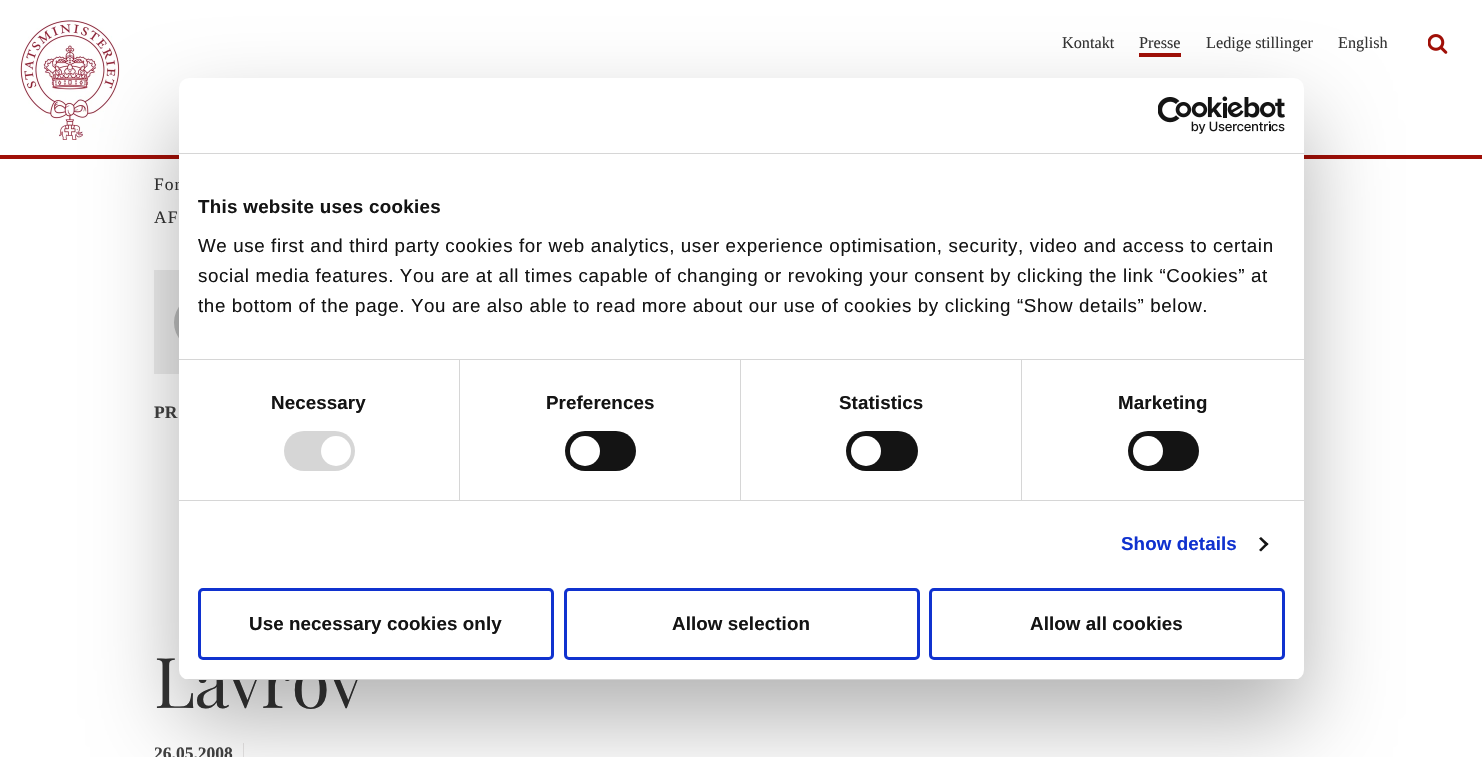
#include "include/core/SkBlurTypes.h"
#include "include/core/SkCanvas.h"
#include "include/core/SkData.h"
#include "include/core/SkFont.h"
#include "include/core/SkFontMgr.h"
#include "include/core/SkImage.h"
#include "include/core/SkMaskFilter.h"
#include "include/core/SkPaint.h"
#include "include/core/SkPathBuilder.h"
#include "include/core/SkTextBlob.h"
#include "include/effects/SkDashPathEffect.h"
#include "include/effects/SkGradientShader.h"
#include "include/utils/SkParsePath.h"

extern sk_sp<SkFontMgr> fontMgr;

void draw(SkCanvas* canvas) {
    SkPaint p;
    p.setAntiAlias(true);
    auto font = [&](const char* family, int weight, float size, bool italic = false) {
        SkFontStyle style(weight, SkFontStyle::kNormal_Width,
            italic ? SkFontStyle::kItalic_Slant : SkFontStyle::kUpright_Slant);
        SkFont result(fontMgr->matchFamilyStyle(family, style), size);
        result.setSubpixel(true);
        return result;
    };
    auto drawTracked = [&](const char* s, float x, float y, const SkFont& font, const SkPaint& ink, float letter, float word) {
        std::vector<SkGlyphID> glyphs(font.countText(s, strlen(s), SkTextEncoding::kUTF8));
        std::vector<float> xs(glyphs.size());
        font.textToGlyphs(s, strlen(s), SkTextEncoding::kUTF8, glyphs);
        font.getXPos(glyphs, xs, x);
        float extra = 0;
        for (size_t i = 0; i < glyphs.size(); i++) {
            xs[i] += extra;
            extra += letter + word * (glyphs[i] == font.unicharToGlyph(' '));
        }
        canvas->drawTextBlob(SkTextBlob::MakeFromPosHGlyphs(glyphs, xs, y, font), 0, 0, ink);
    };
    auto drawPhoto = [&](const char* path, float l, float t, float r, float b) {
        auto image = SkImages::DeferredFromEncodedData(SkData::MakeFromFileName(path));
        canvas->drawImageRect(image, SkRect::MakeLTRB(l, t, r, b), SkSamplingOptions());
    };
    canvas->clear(0xFFFFFFFF);
    p.setColor(0xFFA00F07);
    canvas->drawRect(SkRect::MakeLTRB(0, 155, 1482, 159), p);
    drawPhoto("media/1.png", 20, 20, 120, 140);
    auto font1 = font("Liberation Serif", 400, 16.25f);
    p.setColor(0xFF343434);
    canvas->drawString("Kontakt", 1062, 48, font1, p);
    canvas->drawString("Presse", 1139, 48, font1, p);
    p.setColor(0xFFA00F07);
    canvas->drawRect(SkRect::MakeLTRB(1139, 53, 1181, 57), p);
    p.setColor(0xFF343434);
    canvas->drawString("Ledige stillinger", 1206, 48, font1, p);
    canvas->drawString("English", 1338, 48, font1, p);
    drawPhoto("media/2.png", 1428, 34, 1448, 54);
    auto font2 = font("Liberation Serif", 400, 17.5f);
    drawTracked("For", 154, 190, font2, p, 1, 0);
    drawTracked("AF", 154, 223, font2, p, 1, 0);
    p.setColor(0xFFECECEC);
    canvas->drawRect(SkRect::MakeLTRB(154, 270, 179, 374), p);
    p.setColor(0xFFBABBBB);
    canvas->drawCircle(201.5f, 322.5f, 27.5f, p);
    auto font3 = font("Liberation Serif", 700, 17.5f);
    p.setColor(0xFF424242);
    canvas->drawString("PR", 154, 418, font3, p);
    auto font4 = font("Playfair Display", 400, 70);
    p.setColor(0xFF343434);
    drawTracked("Lavrov", 154, 708, font4, p, -1, 0);
    p.setColor(0xFF424242);
    canvas->drawString("26.05.2008", 154, 759, font3, p);
    p.setColor(0xFFE8E6E6);
    canvas->drawRect(SkRect::MakeLTRB(243, 743, 244, 757), p);
    p.setColor(0x4D000000);
    p.setMaskFilter(SkMaskFilter::MakeBlur(kNormal_SkBlurStyle, 42.5f));
    canvas->drawRoundRect(SkRect::MakeLTRB(179, 118, 1304, 720), 10, 10, p);
    p.setMaskFilter(nullptr);
    p.setColor(0xFFFFFFFF);
    canvas->drawRoundRect(SkRect::MakeLTRB(179, 78, 1304, 680), 10, 10, p);
    p.setColor(0xFFD6D6D6);
    canvas->drawRect(SkRect::MakeLTRB(179, 153, 1304, 154), p);
    drawPhoto("media/3.png", 1158, 96, 1285, 134);
    canvas->drawRect(SkRect::MakeLTRB(179, 359, 1304, 360), p);
    auto font5 = font("Liberation Sans", 700, 18.75f);
    p.setColor(0xFF141414);
    drawTracked("This website uses cookies", 198, 213, font5, p, 0.3f, 0);
    auto font6 = font("Liberation Sans", 400, 18.75f);
    {
        const struct { const char* s; float x, y; } items[] = {
            {"We use first and third party cookies for web analytics, user experience optimisation, security, video and access to certain", 198, 252},
            {"social media features. You are at all times capable of changing or revoking your consent by clicking the link “Cookies” at", 198, 282},
            {"the bottom of the page. You are also able to read more about our use of cookies by clicking “Show details” below.", 198, 312},
        };
        for (auto [s, x, y] : items) {
            drawTracked(s, x, y, font6, p, 0.62f, 0);
        }
    }
    p.setColor(0xFFD6D6D6);
    canvas->drawRect(SkRect::MakeLTRB(179, 500, 1304, 501), p);
    canvas->drawRect(SkRect::MakeLTRB(459, 360, 460, 500), p);
    p.setColor(0xFF141414);
    drawTracked("Necessary", 271, 409, font5, p, 0.1f, 0);
    p.setColor(0xFFD6D6D6);
    canvas->drawRoundRect(SkRect::MakeLTRB(284, 431, 355, 471), 20, 20, p);
    p.setColor(0xFFFFFFFF);
    canvas->drawCircle(336, 451, 15, p);
    p.setColor(0xFFD6D6D6);
    canvas->drawRect(SkRect::MakeLTRB(740, 360, 741, 500), p);
    p.setColor(0xFF141414);
    drawTracked("Preferences", 546, 409, font5, p, 0.1f, 0);
    canvas->drawRoundRect(SkRect::MakeLTRB(565, 431, 636, 471), 20, 20, p);
    p.setColor(0xFFFFFFFF);
    canvas->drawCircle(585, 451, 15, p);
    p.setColor(0xFFD6D6D6);
    canvas->drawRect(SkRect::MakeLTRB(1021, 360, 1022, 500), p);
    p.setColor(0xFF141414);
    drawTracked("Statistics", 839, 409, font5, p, 0.1f, 0);
    canvas->drawRoundRect(SkRect::MakeLTRB(846, 431, 918, 471), 20, 20, p);
    p.setColor(0xFFFFFFFF);
    canvas->drawCircle(866, 451, 15, p);
    p.setColor(0xFF141414);
    drawTracked("Marketing", 1118, 409, font5, p, 0.1f, 0);
    canvas->drawRoundRect(SkRect::MakeLTRB(1128, 431, 1199, 471), 20, 20, p);
    p.setColor(0xFFFFFFFF);
    canvas->drawCircle(1148, 451, 15, p);
    p.setColor(0xFF1032CF);
    drawTracked("Show details", 1121, 550, font5, p, 0.1f, 0);
    p.setColor(0xFF141414);
    canvas->drawPath(SkPathBuilder().moveTo(1261, 537).lineTo(1268.5f, 544).lineTo(1266.5f, 546).lineTo(1259, 538.5f).close().detach(), p);
    canvas->drawPath(SkPathBuilder().moveTo(1266.5f, 542.5f).lineTo(1268.5f, 544).lineTo(1261, 551.5f).lineTo(1259, 550).close().detach(), p);
    canvas->save();
    canvas->clipPath(SkPathBuilder().moveTo(189, 78).lineTo(1294, 78).cubicTo(1299.5f, 78, 1304, 82.5f, 1304, 88).lineTo(1304, 670).cubicTo(1304, 675.5f, 1299.5f, 680, 1294, 680).lineTo(189, 680).cubicTo(183.5f, 680, 179, 675.5f, 179, 670).lineTo(179, 88).cubicTo(179, 82.5f, 183.5f, 78, 189, 78).close().detach(), true);
    p.setColor(0xFFD6D6D6);
    canvas->drawRect(SkRect::MakeLTRB(179, 679, 1304, 680), p);
    canvas->restore();
    p.setStyle(SkPaint::kStroke_Style);
    p.setStrokeWidth(3);
    p.setColor(0xFF1032CF);
    canvas->drawRoundRect(SkRect::MakeLTRB(199.5f, 589.5f, 552.5f, 658.5f), 3.5f, 3.5f, p);
    p.setStyle(SkPaint::kFill_Style);
    p.setColor(0xFF141414);
    drawTracked("Use necessary cookies only", 249, 630, font5, p, 0.1f, 0);
    p.setStyle(SkPaint::kStroke_Style);
    p.setColor(0xFF1032CF);
    canvas->drawRoundRect(SkRect::MakeLTRB(565.5f, 589.5f, 918.5f, 658.5f), 3.5f, 3.5f, p);
    p.setStyle(SkPaint::kFill_Style);
    p.setColor(0xFF141414);
    drawTracked("Allow selection", 672, 630, font5, p, 0.1f, 0);
    p.setStyle(SkPaint::kStroke_Style);
    p.setColor(0xFF1032CF);
    canvas->drawRoundRect(SkRect::MakeLTRB(930.5f, 589.5f, 1283.5f, 658.5f), 3.5f, 3.5f, p);
    p.setStyle(SkPaint::kFill_Style);
    p.setColor(0xFF141414);
    drawTracked("Allow all cookies", 1030, 630, font5, p, 0.1f, 0);
}
